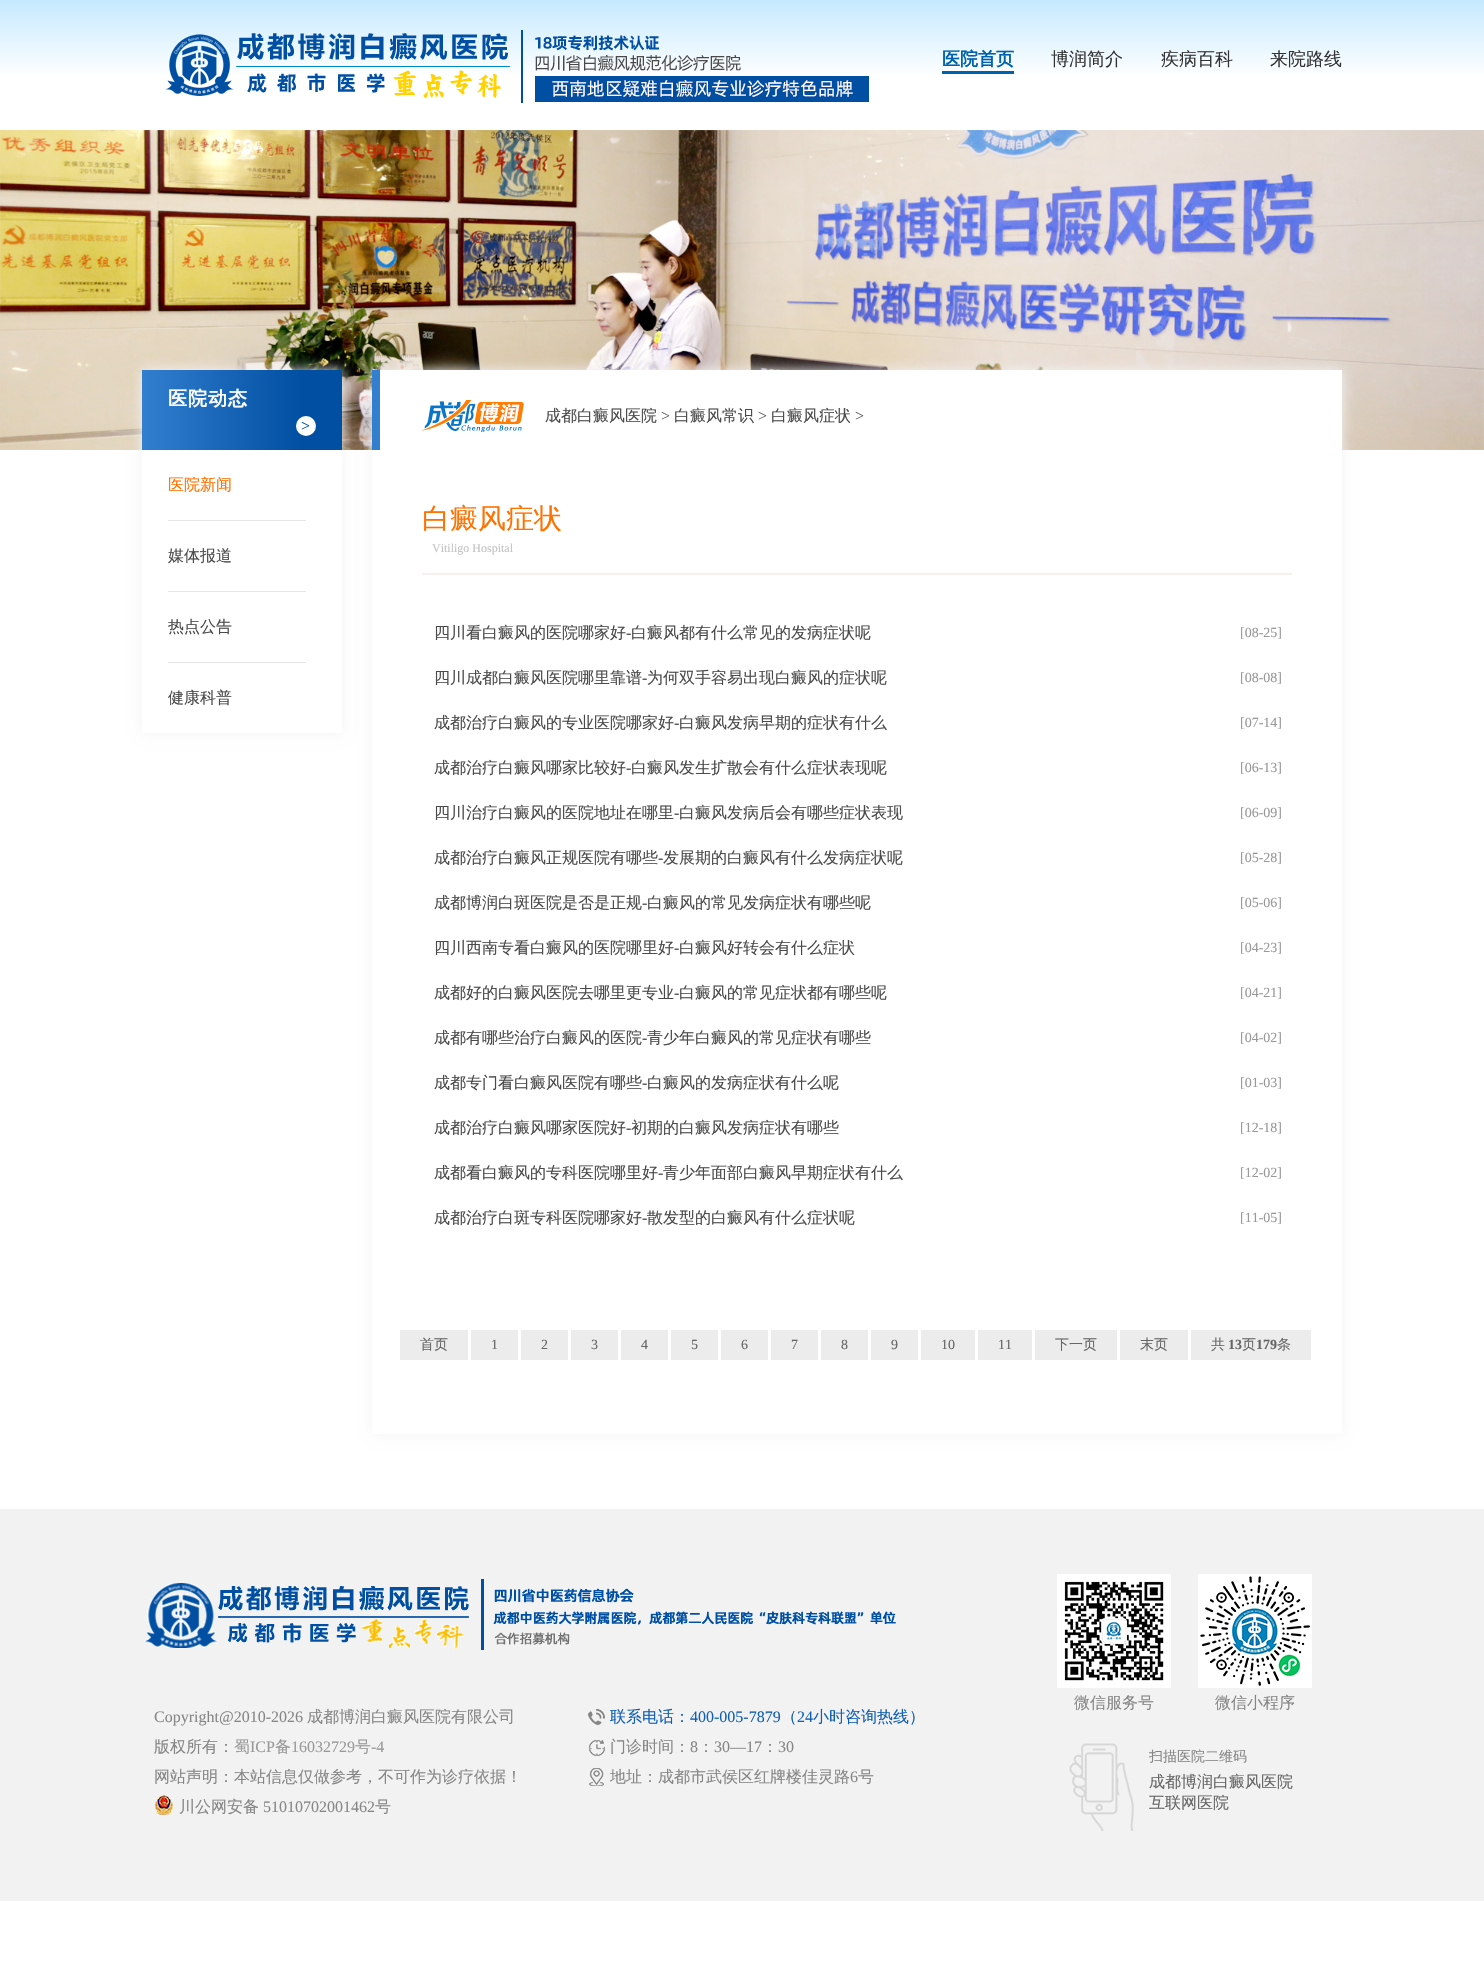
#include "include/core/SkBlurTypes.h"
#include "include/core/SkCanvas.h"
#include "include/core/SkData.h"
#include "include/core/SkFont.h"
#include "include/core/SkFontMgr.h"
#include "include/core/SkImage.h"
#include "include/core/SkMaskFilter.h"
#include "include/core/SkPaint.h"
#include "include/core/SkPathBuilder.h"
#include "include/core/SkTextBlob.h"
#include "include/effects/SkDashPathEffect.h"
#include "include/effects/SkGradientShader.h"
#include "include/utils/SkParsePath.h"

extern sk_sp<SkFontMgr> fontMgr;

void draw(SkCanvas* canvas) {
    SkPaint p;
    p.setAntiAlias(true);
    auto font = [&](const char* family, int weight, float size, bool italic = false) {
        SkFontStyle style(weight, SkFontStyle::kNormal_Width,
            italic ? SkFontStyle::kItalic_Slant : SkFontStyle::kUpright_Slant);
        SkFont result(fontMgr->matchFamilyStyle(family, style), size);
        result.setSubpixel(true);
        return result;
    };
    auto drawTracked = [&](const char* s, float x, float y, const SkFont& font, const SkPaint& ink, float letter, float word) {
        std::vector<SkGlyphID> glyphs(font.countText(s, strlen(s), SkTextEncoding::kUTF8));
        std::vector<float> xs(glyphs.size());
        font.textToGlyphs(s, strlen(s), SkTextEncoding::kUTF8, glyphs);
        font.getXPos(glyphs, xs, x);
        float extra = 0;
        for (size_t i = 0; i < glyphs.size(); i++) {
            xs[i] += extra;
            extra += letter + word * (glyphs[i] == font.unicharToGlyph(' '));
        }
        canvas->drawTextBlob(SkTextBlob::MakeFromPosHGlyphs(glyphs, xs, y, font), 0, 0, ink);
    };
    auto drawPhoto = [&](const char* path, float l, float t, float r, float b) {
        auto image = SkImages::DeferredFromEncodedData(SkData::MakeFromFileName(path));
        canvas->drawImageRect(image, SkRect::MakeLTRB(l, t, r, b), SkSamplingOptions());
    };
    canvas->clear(0xFFFFFFFF);
    {
        const SkColor colors[] = {0xFFC6E9FF, 0xFFFFFFFF};
        const float stops[] = {0, 0.6f};
        const SkPoint ends[] = {{742, 0}, {742, 130}};
        p.setShader(SkGradientShader::MakeLinear(ends, colors, stops, 2, SkTileMode::kClamp));
        p.setAlpha(255);
    }
    canvas->drawRect(SkRect::MakeLTRB(0, 0, 1484, 75), p);
    drawPhoto("media/1.png", 165, 30, 869, 103);
    p.setShader(nullptr);
    p.setColor(0xFF0062AC);
    canvas->drawRect(SkRect::MakeLTRB(942, 71, 1014, 74), p);
    auto font1 = font("WenQuanYi Zen Hei", 700, 18);
    canvas->drawString("医院首页", 942, 65, font1, p);
    auto font2 = font("WenQuanYi Zen Hei", 500, 18);
    p.setColor(0xFF333333);
    {
        const struct { const char* s; float x, y; } items[] = {
            {"博润简介", 1051, 65},
            {"疾病百科", 1161, 65},
            {"来院路线", 1270, 65},
        };
        for (auto [s, x, y] : items) {
            canvas->drawString(s, x, y, font2, p);
        }
    }
    drawPhoto("media/2.png", 0, 130, 1484, 450);
    canvas->save();
    canvas->clipPath(SkPathBuilder(SkPathFillType::kEvenOdd).moveTo(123, 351).lineTo(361, 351).lineTo(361, 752).lineTo(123, 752).close().moveTo(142, 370).lineTo(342, 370).lineTo(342, 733).lineTo(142, 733).close().detach(), true);
    p.setColor(0xFFF4F3F3);
    p.setMaskFilter(SkMaskFilter::MakeBlur(kNormal_SkBlurStyle, 6));
    canvas->drawRect(SkRect::MakeLTRB(142, 370, 342, 733), p);
    p.setMaskFilter(nullptr);
    canvas->restore();
    {
        const SkColor colors[] = {0xFF327ECF, 0xFF014FA2};
        const float stops[] = {0, 0.8f};
        const SkPoint ends[] = {{142, 410}, {342, 410}};
        p.setShader(SkGradientShader::MakeLinear(ends, colors, stops, 2, SkTileMode::kClamp));
        p.setAlpha(255);
    }
    canvas->drawRect(SkRect::MakeLTRB(142, 370, 342, 450), p);
    auto font3 = font("WenQuanYi Zen Hei", 700, 19);
    p.setShader(nullptr);
    p.setColor(0xFFFFFFFF);
    drawTracked("医院动态", 168, 405, font3, p, 1, 0);
    canvas->drawCircle(306, 426, 10, p);
    auto font4 = font("Liberation Serif", 400, 16);
    p.setColor(0xFF014FA2);
    drawTracked(">", 301, 431, font4, p, 1, 0);
    p.setColor(0xFFE7E6E6);
    canvas->drawRect(SkRect::MakeLTRB(168, 520, 306, 521), p);
    auto font5 = font("WenQuanYi Zen Hei", 500, 16);
    p.setColor(0xFFFF7201);
    canvas->drawString("医院新闻", 168, 490, font5, p);
    p.setColor(0xFFE7E6E6);
    canvas->drawRect(SkRect::MakeLTRB(168, 591, 306, 592), p);
    p.setColor(0xFF4A4A4A);
    canvas->drawString("媒体报道", 168, 561, font5, p);
    p.setColor(0xFFE7E6E6);
    canvas->drawRect(SkRect::MakeLTRB(168, 662, 306, 663), p);
    p.setColor(0xFF4A4A4A);
    canvas->drawString("热点公告", 168, 632, font5, p);
    canvas->drawString("健康科普", 168, 703, font5, p);
    p.setColor(0xFFF4F3F3);
    p.setMaskFilter(SkMaskFilter::MakeBlur(kNormal_SkBlurStyle, 6));
    canvas->drawRect(SkRect::MakeLTRB(372, 370, 1342, 1434), p);
    p.setMaskFilter(nullptr);
    p.setColor(0xFFFFFFFF);
    canvas->drawRect(SkRect::MakeLTRB(372, 370, 1342, 1434), p);
    p.setColor(0xFF327ECF);
    canvas->drawRect(SkRect::MakeLTRB(372, 370, 380, 450), p);
    drawPhoto("media/3.png", 421, 400, 524, 432);
    p.setColor(0xFF4A4A4A);
    canvas->drawString("成都白癜风医院", 545, 421, font5, p);
    p.setColor(0xFF666666);
    canvas->drawString(">", 661, 421, font4, p);
    p.setColor(0xFF4A4A4A);
    canvas->drawString("白癜风常识", 674, 421, font5, p);
    p.setColor(0xFF666666);
    canvas->drawString(">", 758, 421, font4, p);
    p.setColor(0xFF4A4A4A);
    canvas->drawString("白癜风症状", 771, 421, font5, p);
    p.setColor(0xFF666666);
    canvas->drawString(">", 855, 421, font4, p);
    p.setColor(0xFFF3F0ED);
    canvas->drawRect(SkRect::MakeLTRB(422, 573, 1292, 575), p);
    auto font6 = font("WenQuanYi Zen Hei", 500, 28);
    p.setColor(0xFFFF7201);
    canvas->drawString("白癜风症状", 422, 528, font6, p);
    auto font7 = font("Liberation Serif", 400, 12);
    p.setColor(0xFFC3C3C3);
    canvas->drawString("Vitiligo Hospital", 432, 552, font7, p);
    p.setColor(0xFF4A4A4A);
    canvas->drawString("四川看白癜风的医院哪家好", 434, 638, font5, p);
    canvas->drawString("-", 626, 638, font4, p);
    canvas->drawString("白癜风都有什么常见的发病症状呢", 631, 638, font5, p);
    auto font8 = font("Liberation Serif", 400, 14);
    p.setColor(0xFF999999);
    canvas->drawString("[08-25]", 1240, 637, font8, p);
    p.setColor(0xFF4A4A4A);
    canvas->drawString("四川成都白癜风医院哪里靠谱", 434, 683, font5, p);
    canvas->drawString("-", 642, 683, font4, p);
    canvas->drawString("为何双手容易出现白癜风的症状呢", 647, 683, font5, p);
    p.setColor(0xFF999999);
    canvas->drawString("[08-08]", 1240, 682, font8, p);
    p.setColor(0xFF4A4A4A);
    canvas->drawString("成都治疗白癜风的专业医院哪家好", 434, 728, font5, p);
    canvas->drawString("-", 674, 728, font4, p);
    canvas->drawString("白癜风发病早期的症状有什么", 679, 728, font5, p);
    p.setColor(0xFF999999);
    canvas->drawString("[07-14]", 1240, 727, font8, p);
    p.setColor(0xFF4A4A4A);
    canvas->drawString("成都治疗白癜风哪家比较好", 434, 773, font5, p);
    canvas->drawString("-", 626, 773, font4, p);
    canvas->drawString("白癜风发生扩散会有什么症状表现呢", 631, 773, font5, p);
    p.setColor(0xFF999999);
    canvas->drawString("[06-13]", 1240, 772, font8, p);
    p.setColor(0xFF4A4A4A);
    canvas->drawString("四川治疗白癜风的医院地址在哪里", 434, 818, font5, p);
    canvas->drawString("-", 674, 818, font4, p);
    canvas->drawString("白癜风发病后会有哪些症状表现", 679, 818, font5, p);
    p.setColor(0xFF999999);
    canvas->drawString("[06-09]", 1240, 817, font8, p);
    p.setColor(0xFF4A4A4A);
    canvas->drawString("成都治疗白癜风正规医院有哪些", 434, 863, font5, p);
    canvas->drawString("-", 658, 863, font4, p);
    canvas->drawString("发展期的白癜风有什么发病症状呢", 663, 863, font5, p);
    p.setColor(0xFF999999);
    canvas->drawString("[05-28]", 1240, 862, font8, p);
    p.setColor(0xFF4A4A4A);
    canvas->drawString("成都博润白斑医院是否是正规", 434, 908, font5, p);
    canvas->drawString("-", 642, 908, font4, p);
    canvas->drawString("白癜风的常见发病症状有哪些呢", 647, 908, font5, p);
    p.setColor(0xFF999999);
    canvas->drawString("[05-06]", 1240, 907, font8, p);
    p.setColor(0xFF4A4A4A);
    canvas->drawString("四川西南专看白癜风的医院哪里好", 434, 953, font5, p);
    canvas->drawString("-", 674, 953, font4, p);
    canvas->drawString("白癜风好转会有什么症状", 679, 953, font5, p);
    p.setColor(0xFF999999);
    canvas->drawString("[04-23]", 1240, 952, font8, p);
    p.setColor(0xFF4A4A4A);
    canvas->drawString("成都好的白癜风医院去哪里更专业", 434, 998, font5, p);
    canvas->drawString("-", 674, 998, font4, p);
    canvas->drawString("白癜风的常见症状都有哪些呢", 679, 998, font5, p);
    p.setColor(0xFF999999);
    canvas->drawString("[04-21]", 1240, 997, font8, p);
    p.setColor(0xFF4A4A4A);
    canvas->drawString("成都有哪些治疗白癜风的医院", 434, 1043, font5, p);
    canvas->drawString("-", 642, 1043, font4, p);
    canvas->drawString("青少年白癜风的常见症状有哪些", 647, 1043, font5, p);
    p.setColor(0xFF999999);
    canvas->drawString("[04-02]", 1240, 1042, font8, p);
    p.setColor(0xFF4A4A4A);
    canvas->drawString("成都专门看白癜风医院有哪些", 434, 1088, font5, p);
    canvas->drawString("-", 642, 1088, font4, p);
    canvas->drawString("白癜风的发病症状有什么呢", 647, 1088, font5, p);
    p.setColor(0xFF999999);
    canvas->drawString("[01-03]", 1240, 1087, font8, p);
    p.setColor(0xFF4A4A4A);
    canvas->drawString("成都治疗白癜风哪家医院好", 434, 1133, font5, p);
    canvas->drawString("-", 626, 1133, font4, p);
    canvas->drawString("初期的白癜风发病症状有哪些", 631, 1133, font5, p);
    p.setColor(0xFF999999);
    canvas->drawString("[12-18]", 1240, 1132, font8, p);
    p.setColor(0xFF4A4A4A);
    canvas->drawString("成都看白癜风的专科医院哪里好", 434, 1178, font5, p);
    canvas->drawString("-", 658, 1178, font4, p);
    canvas->drawString("青少年面部白癜风早期症状有什么", 663, 1178, font5, p);
    p.setColor(0xFF999999);
    canvas->drawString("[12-02]", 1240, 1177, font8, p);
    p.setColor(0xFF4A4A4A);
    canvas->drawString("成都治疗白斑专科医院哪家好", 434, 1223, font5, p);
    canvas->drawString("-", 642, 1223, font4, p);
    canvas->drawString("散发型的白癜风有什么症状呢", 647, 1223, font5, p);
    p.setColor(0xFF999999);
    canvas->drawString("[11-05]", 1240, 1222, font8, p);
    p.setColor(0xFFECECEC);
    canvas->drawRect(SkRect::MakeLTRB(400, 1330, 468, 1360), p);
    auto font9 = font("WenQuanYi Zen Hei", 500, 14);
    p.setColor(0xFF666666);
    canvas->drawString("首页", 420, 1349, font9, p);
    p.setColor(0xFFECECEC);
    canvas->drawRect(SkRect::MakeLTRB(471, 1330, 518, 1360), p);
    p.setColor(0xFF666666);
    canvas->drawString("1", 491, 1349, font8, p);
    p.setColor(0xFFECECEC);
    canvas->drawRect(SkRect::MakeLTRB(521, 1330, 568, 1360), p);
    p.setColor(0xFF666666);
    canvas->drawString("2", 541, 1349, font8, p);
    p.setColor(0xFFECECEC);
    canvas->drawRect(SkRect::MakeLTRB(571, 1330, 618, 1360), p);
    p.setColor(0xFF666666);
    canvas->drawString("3", 591, 1349, font8, p);
    p.setColor(0xFFECECEC);
    canvas->drawRect(SkRect::MakeLTRB(621, 1330, 668, 1360), p);
    p.setColor(0xFF666666);
    canvas->drawString("4", 641, 1349, font8, p);
    p.setColor(0xFFECECEC);
    canvas->drawRect(SkRect::MakeLTRB(671, 1330, 718, 1360), p);
    p.setColor(0xFF666666);
    canvas->drawString("5", 691, 1349, font8, p);
    p.setColor(0xFFECECEC);
    canvas->drawRect(SkRect::MakeLTRB(721, 1330, 768, 1360), p);
    p.setColor(0xFF666666);
    canvas->drawString("6", 741, 1349, font8, p);
    p.setColor(0xFFECECEC);
    canvas->drawRect(SkRect::MakeLTRB(771, 1330, 818, 1360), p);
    p.setColor(0xFF666666);
    canvas->drawString("7", 791, 1349, font8, p);
    p.setColor(0xFFECECEC);
    canvas->drawRect(SkRect::MakeLTRB(821, 1330, 868, 1360), p);
    p.setColor(0xFF666666);
    canvas->drawString("8", 841, 1349, font8, p);
    p.setColor(0xFFECECEC);
    canvas->drawRect(SkRect::MakeLTRB(871, 1330, 918, 1360), p);
    p.setColor(0xFF666666);
    canvas->drawString("9", 891, 1349, font8, p);
    p.setColor(0xFFECECEC);
    canvas->drawRect(SkRect::MakeLTRB(921, 1330, 975, 1360), p);
    p.setColor(0xFF666666);
    canvas->drawString("10", 941, 1349, font8, p);
    p.setColor(0xFFECECEC);
    canvas->drawRect(SkRect::MakeLTRB(978, 1330, 1032, 1360), p);
    p.setColor(0xFF666666);
    canvas->drawString("11", 998, 1349, font8, p);
    p.setColor(0xFFECECEC);
    canvas->drawRect(SkRect::MakeLTRB(1035, 1330, 1117, 1360), p);
    p.setColor(0xFF666666);
    canvas->drawString("下一页", 1055, 1349, font9, p);
    p.setColor(0xFFECECEC);
    canvas->drawRect(SkRect::MakeLTRB(1120, 1330, 1188, 1360), p);
    p.setColor(0xFF666666);
    canvas->drawString("末页", 1140, 1349, font9, p);
    p.setColor(0xFFECECEC);
    canvas->drawRect(SkRect::MakeLTRB(1191, 1330, 1311, 1360), p);
    p.setColor(0xFF666666);
    canvas->drawString("共", 1211, 1349, font9, p);
    auto font10 = font("Liberation Serif", 700, 14);
    canvas->drawString("13", 1228, 1349, font10, p);
    canvas->drawString("页", 1242, 1349, font9, p);
    canvas->drawString("179", 1256, 1349, font10, p);
    canvas->drawString("条", 1277, 1349, font9, p);
    p.setColor(0xFFF2F2F2);
    canvas->drawRect(SkRect::MakeLTRB(0, 1509, 1484, 1901), p);
    drawPhoto("media/4.png", 144, 1579, 896, 1650);
    p.setColor(0xFF868686);
    canvas->drawString("Copyright@2010-2026", 154, 1722, font4, p);
    canvas->drawString("成都博润白癜风医院有限公司", 307, 1722, font5, p);
    canvas->drawString("版权所有：", 154, 1752, font5, p);
    p.setColor(0xFF999999);
    canvas->drawString("蜀", 234, 1752, font5, p);
    canvas->drawString("ICP", 250, 1752, font4, p);
    canvas->drawString("备", 275, 1752, font5, p);
    canvas->drawString("16032729", 291, 1752, font4, p);
    canvas->drawString("号", 355, 1752, font5, p);
    canvas->drawString("-4", 371, 1752, font4, p);
    p.setColor(0xFF868686);
    canvas->drawString("网站声明：本站信息仅做参考，不可作为诊疗依据！", 154, 1782, font5, p);
    drawPhoto("media/5.png", 155, 1795, 173, 1815);
    canvas->drawString("川公网安备", 179, 1812, font5, p);
    canvas->drawString("51010702001462", 263, 1812, font4, p);
    canvas->drawString("号", 375, 1812, font5, p);
    drawPhoto("media/6.png", 588, 1709, 605, 1725);
    p.setColor(0xFF105FB3);
    canvas->drawString("联系电话：", 610, 1722, font5, p);
    canvas->drawString("400-005-7879", 690, 1722, font4, p);
    canvas->drawString("（", 781, 1722, font5, p);
    canvas->drawString("24", 797, 1722, font4, p);
    canvas->drawString("小时咨询热线）", 813, 1722, font5, p);
    drawPhoto("media/7.png", 589, 1740, 605, 1756);
    p.setColor(0xFF868686);
    canvas->drawString("门诊时间：", 610, 1752, font5, p);
    canvas->drawString("8", 690, 1752, font4, p);
    canvas->drawString("：", 698, 1752, font5, p);
    canvas->drawString("30—17", 714, 1752, font4, p);
    canvas->drawString("：", 762, 1752, font5, p);
    canvas->drawString("30", 778, 1752, font4, p);
    drawPhoto("media/8.png", 589, 1768, 604, 1786);
    canvas->drawString("地址：成都市武侯区红牌楼佳灵路", 610, 1782, font5, p);
    canvas->drawString("6", 850, 1782, font4, p);
    canvas->drawString("号", 858, 1782, font5, p);
    drawPhoto("media/9.png", 1057, 1574, 1171, 1688);
    canvas->drawString("微信服务号", 1074, 1708, font5, p);
    drawPhoto("media/10.png", 1198, 1574, 1312, 1688);
    canvas->drawString("微信小程序", 1215, 1708, font5, p);
    drawPhoto("media/11.png", 1069, 1743, 1134, 1831);
    canvas->drawString("扫描医院二维码", 1149, 1761, font9, p);
    p.setColor(0xFF666666);
    canvas->drawString("成都博润白癜风医院", 1149, 1787, font5, p);
    canvas->drawString("互联网医院", 1149, 1808, font5, p);
}
